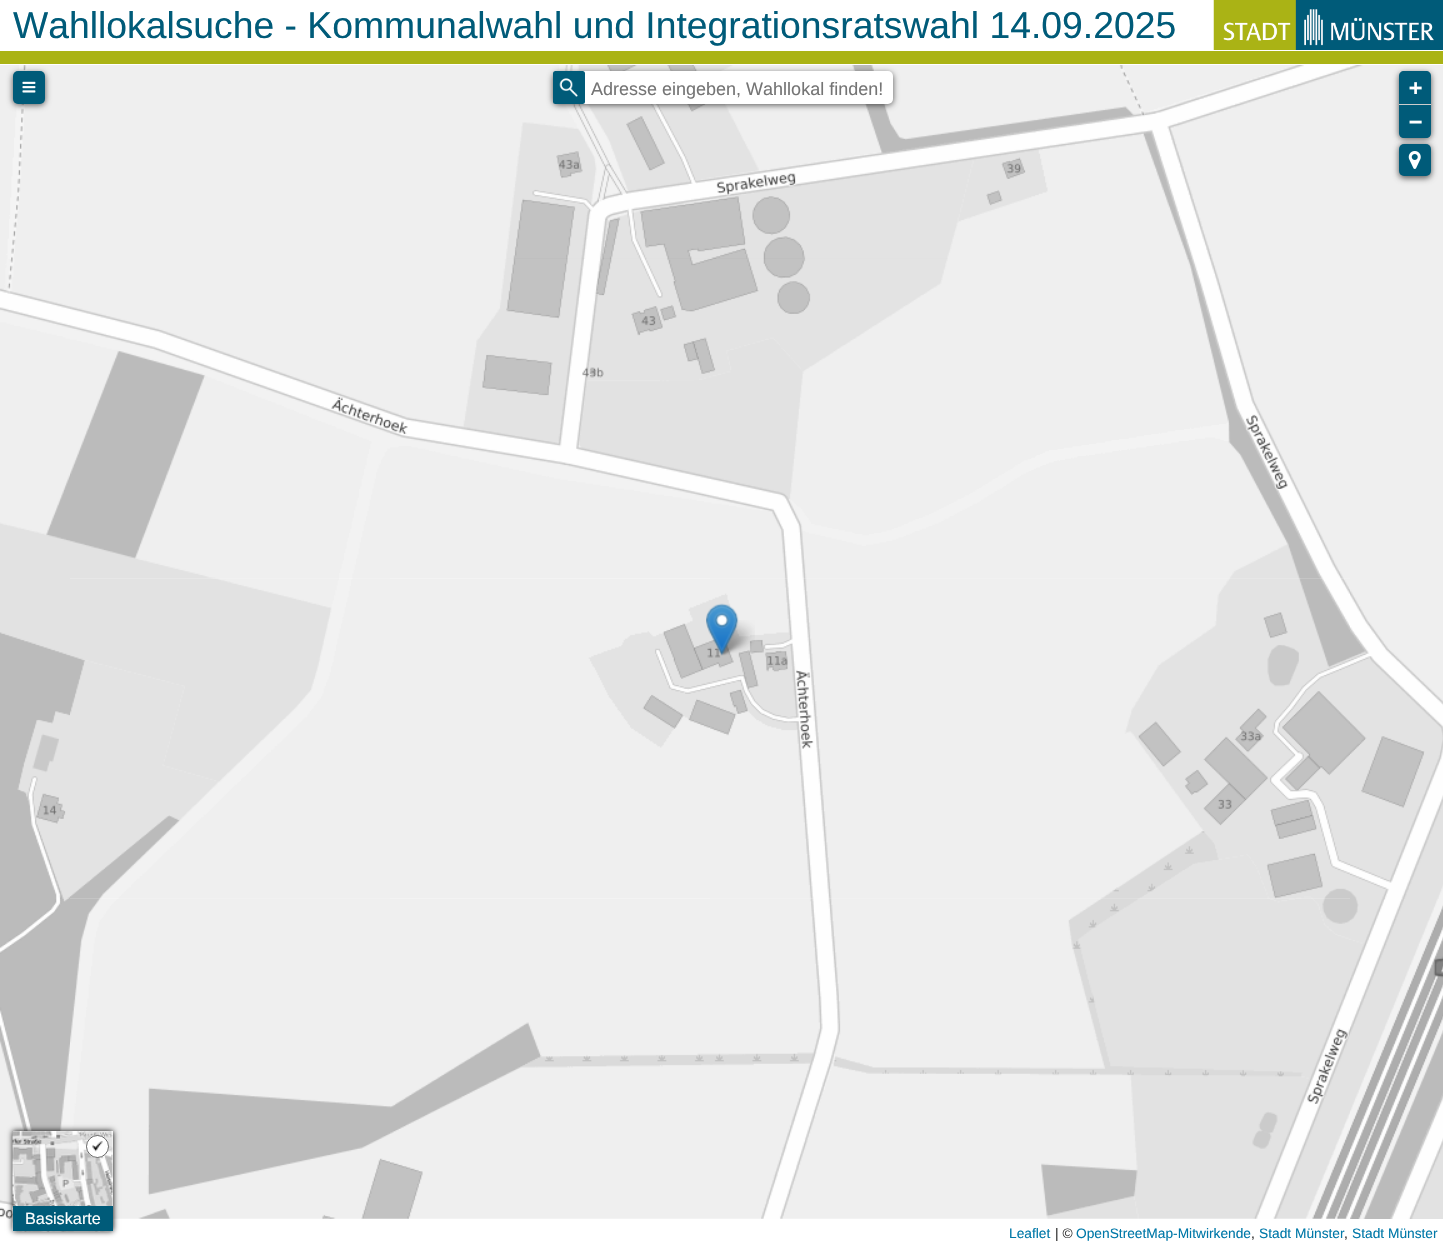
#include "include/core/SkBlurTypes.h"
#include "include/core/SkCanvas.h"
#include "include/core/SkData.h"
#include "include/core/SkFont.h"
#include "include/core/SkFontMgr.h"
#include "include/core/SkImage.h"
#include "include/core/SkMaskFilter.h"
#include "include/core/SkPaint.h"
#include "include/core/SkPathBuilder.h"
#include "include/core/SkTextBlob.h"
#include "include/effects/SkDashPathEffect.h"
#include "include/effects/SkGradientShader.h"
#include "include/utils/SkParsePath.h"

extern sk_sp<SkFontMgr> fontMgr;

void draw(SkCanvas* canvas) {
    SkPaint p;
    p.setAntiAlias(true);
    auto font = [&](const char* family, int weight, float size, bool italic = false) {
        SkFontStyle style(weight, SkFontStyle::kNormal_Width,
            italic ? SkFontStyle::kItalic_Slant : SkFontStyle::kUpright_Slant);
        SkFont result(fontMgr->matchFamilyStyle(family, style), size);
        result.setSubpixel(true);
        return result;
    };
    auto drawPhoto = [&](const char* path, float l, float t, float r, float b) {
        auto image = SkImages::DeferredFromEncodedData(SkData::MakeFromFileName(path));
        canvas->drawImageRect(image, SkRect::MakeLTRB(l, t, r, b), SkSamplingOptions());
    };
    canvas->clear(0xFFFFFFFF);
    p.setColor(0xFFAAB315);
    canvas->drawRect(SkRect::MakeLTRB(0, 51, 1443, 64), p);
    auto font1 = font("Liberation Sans", 400, 37.3f);
    p.setColor(0xFF005B79);
    canvas->drawString("Wahllokalsuche - Kommunalwahl und Integrationsratswahl 14.09.2025", 13, 38, font1, p);
    drawPhoto("media/1.png", 1213, 0, 1443, 50);
    drawPhoto("media/2.png", 0, 65, 70, 259);
    p.setColor(0xFFEFEFEF);
    canvas->drawRect(SkRect::MakeLTRB(70, 65, 390, 259), p);
    drawPhoto("media/9.png", 390, 258, 710, 579);
    drawPhoto("media/3.png", 390, 65, 710, 259);
    drawPhoto("media/10.png", 710, 258, 1030, 579);
    drawPhoto("media/4.png", 710, 65, 1030, 259);
    drawPhoto("media/11.png", 1030, 258, 1350, 579);
    drawPhoto("media/5.png", 1030, 65, 1350, 259);
    drawPhoto("media/6.png", 1350, 65, 1443, 259);
    drawPhoto("media/7.png", 0, 259, 70, 579);
    drawPhoto("media/8.png", 70, 259, 390, 579);
    canvas->drawRect(SkRect::MakeLTRB(1350, 259, 1443, 579), p);
    drawPhoto("media/12.png", 0, 579, 70, 899);
    drawPhoto("media/13.png", 70, 578, 390, 899);
    drawPhoto("media/14.png", 390, 579, 710, 899);
    drawPhoto("media/15.png", 710, 578, 1030, 899);
    drawPhoto("media/16.png", 1030, 578, 1350, 899);
    drawPhoto("media/17.png", 1350, 579, 1443, 899);
    drawPhoto("media/18.png", 0, 899, 70, 1219);
    drawPhoto("media/19.png", 70, 898, 390, 1219);
    drawPhoto("media/20.png", 390, 899, 710, 1219);
    drawPhoto("media/21.png", 710, 898, 1030, 1219);
    drawPhoto("media/22.png", 1030, 898, 1350, 1219);
    drawPhoto("media/23.png", 1350, 899, 1443, 1219);
    drawPhoto("media/25.png", 717, 620, 755, 656);
    drawPhoto("media/24.png", 706, 603, 739, 656);
    p.setColor(0xA6000000);
    p.setMaskFilter(SkMaskFilter::MakeBlur(kNormal_SkBlurStyle, 3));
    canvas->drawRoundRect(SkRect::MakeLTRB(13, 73, 45, 105), 5, 5, p);
    p.setMaskFilter(nullptr);
    p.setColor(0xFF005B79);
    canvas->drawRoundRect(SkRect::MakeLTRB(13, 71, 45, 104), 5, 5, p);
    drawPhoto("media/26.png", 22, 81, 36, 93);
    p.setColor(0xA6000000);
    p.setMaskFilter(SkMaskFilter::MakeBlur(kNormal_SkBlurStyle, 3));
    canvas->drawRoundRect(SkRect::MakeLTRB(553, 73, 893, 105), 5, 5, p);
    p.setMaskFilter(nullptr);
    p.setColor(0xFFFFFFFF);
    canvas->drawRoundRect(SkRect::MakeLTRB(553, 71, 893, 104), 5, 5, p);
    p.setColor(0xFF005B79);
    canvas->drawRoundRect(SkRect::MakeLTRB(553, 71, 585, 104), 2.5f, 2.5f, p);
    drawPhoto("media/27.png", 559, 78, 578, 97);
    auto font2 = font("Liberation Sans", 400, 18);
    p.setColor(0xFF757575);
    canvas->drawString("Adresse eingeben, Wahllokal finden!", 591, 95, font2, p);
    p.setColor(0xA6000000);
    p.setMaskFilter(SkMaskFilter::MakeBlur(kNormal_SkBlurStyle, 3));
    canvas->drawRoundRect(SkRect::MakeLTRB(1399, 73, 1431, 139), 5, 5, p);
    p.setMaskFilter(nullptr);
    p.setColor(0xFF005B79);
    canvas->drawPath(SkPathBuilder().moveTo(1404, 71).lineTo(1426, 71).cubicTo(1429, 71, 1431, 73, 1431, 76).lineTo(1431, 105).lineTo(1399, 105).lineTo(1399, 76).cubicTo(1399, 73, 1401, 71, 1404, 71).close().detach(), p);
    p.setColor(0xFFCCCCCC);
    canvas->drawRect(SkRect::MakeLTRB(1399, 104, 1431, 105), p);
    auto font3 = font("DejaVu Sans Mono", 700, 22);
    p.setColor(0xFFFFFFFF);
    canvas->drawString("+", 1409, 95, font3, p);
    p.setColor(0xFF005B79);
    canvas->drawPath(SkPathBuilder().moveTo(1399, 105).lineTo(1431, 105).lineTo(1431, 133).cubicTo(1431, 136, 1429, 138, 1426, 138).lineTo(1404, 138).cubicTo(1401, 138, 1399, 136, 1399, 133).close().detach(), p);
    p.setColor(0xFFFFFFFF);
    canvas->drawString("−", 1409, 129, font3, p);
    p.setColor(0xA6000000);
    p.setMaskFilter(SkMaskFilter::MakeBlur(kNormal_SkBlurStyle, 3));
    canvas->drawRoundRect(SkRect::MakeLTRB(1399, 145, 1431, 178), 5, 5, p);
    p.setMaskFilter(nullptr);
    p.setColor(0xFF005B79);
    canvas->drawRoundRect(SkRect::MakeLTRB(1399, 144, 1431, 176), 5, 5, p);
    drawPhoto("media/28.png", 1408, 151, 1421, 169);
    p.setColor(0xFF000000);
    p.setMaskFilter(SkMaskFilter::MakeBlur(kNormal_SkBlurStyle, 3));
    canvas->drawRect(SkRect::MakeLTRB(13, 1131, 113, 1231), p);
    p.setMaskFilter(nullptr);
    p.setColor(0xFFFFFFFF);
    canvas->drawRect(SkRect::MakeLTRB(13, 1131, 113, 1206), p);
    drawPhoto("media/29.png", 12, 1131, 113, 1232);
    canvas->drawCircle(97.5f, 1146.5f, 11.5f, p);
    drawPhoto("media/30.png", 92, 1141, 103, 1152);
    p.setStyle(SkPaint::kStroke_Style);
    p.setStrokeWidth(1);
    p.setColor(0x99000000);
    canvas->drawCircle(97.5f, 1146.5f, 11, p);
    p.setStyle(SkPaint::kFill_Style);
    p.setColor(0xFF005B79);
    canvas->drawRect(SkRect::MakeLTRB(13, 1206, 113, 1231), p);
    auto font4 = font("Liberation Sans", 400, 16.25f);
    p.setColor(0xFFFFFFFF);
    canvas->drawString("Basiskarte", 25, 1224, font4, p);
    auto font5 = font("Liberation Sans", 400, 13.75f);
    p.setColor(0xFF0078A8);
    canvas->drawString("Leaflet", 1009, 1238, font5, p);
    p.setColor(0xFF333333);
    canvas->drawString("| ©", 1055, 1238, font5, p);
    p.setColor(0xFF0078A8);
    canvas->drawString("OpenStreetMap-Mitwirkende", 1076, 1238, font5, p);
    p.setColor(0xFF333333);
    canvas->drawString(",", 1251, 1238, font5, p);
    p.setColor(0xFF0078A8);
    canvas->drawString("Stadt Münster", 1259, 1238, font5, p);
    p.setColor(0xFF333333);
    canvas->drawString(",", 1344, 1238, font5, p);
    p.setColor(0xFF0078A8);
    canvas->drawString("Stadt Münster", 1352, 1238, font5, p);
}
